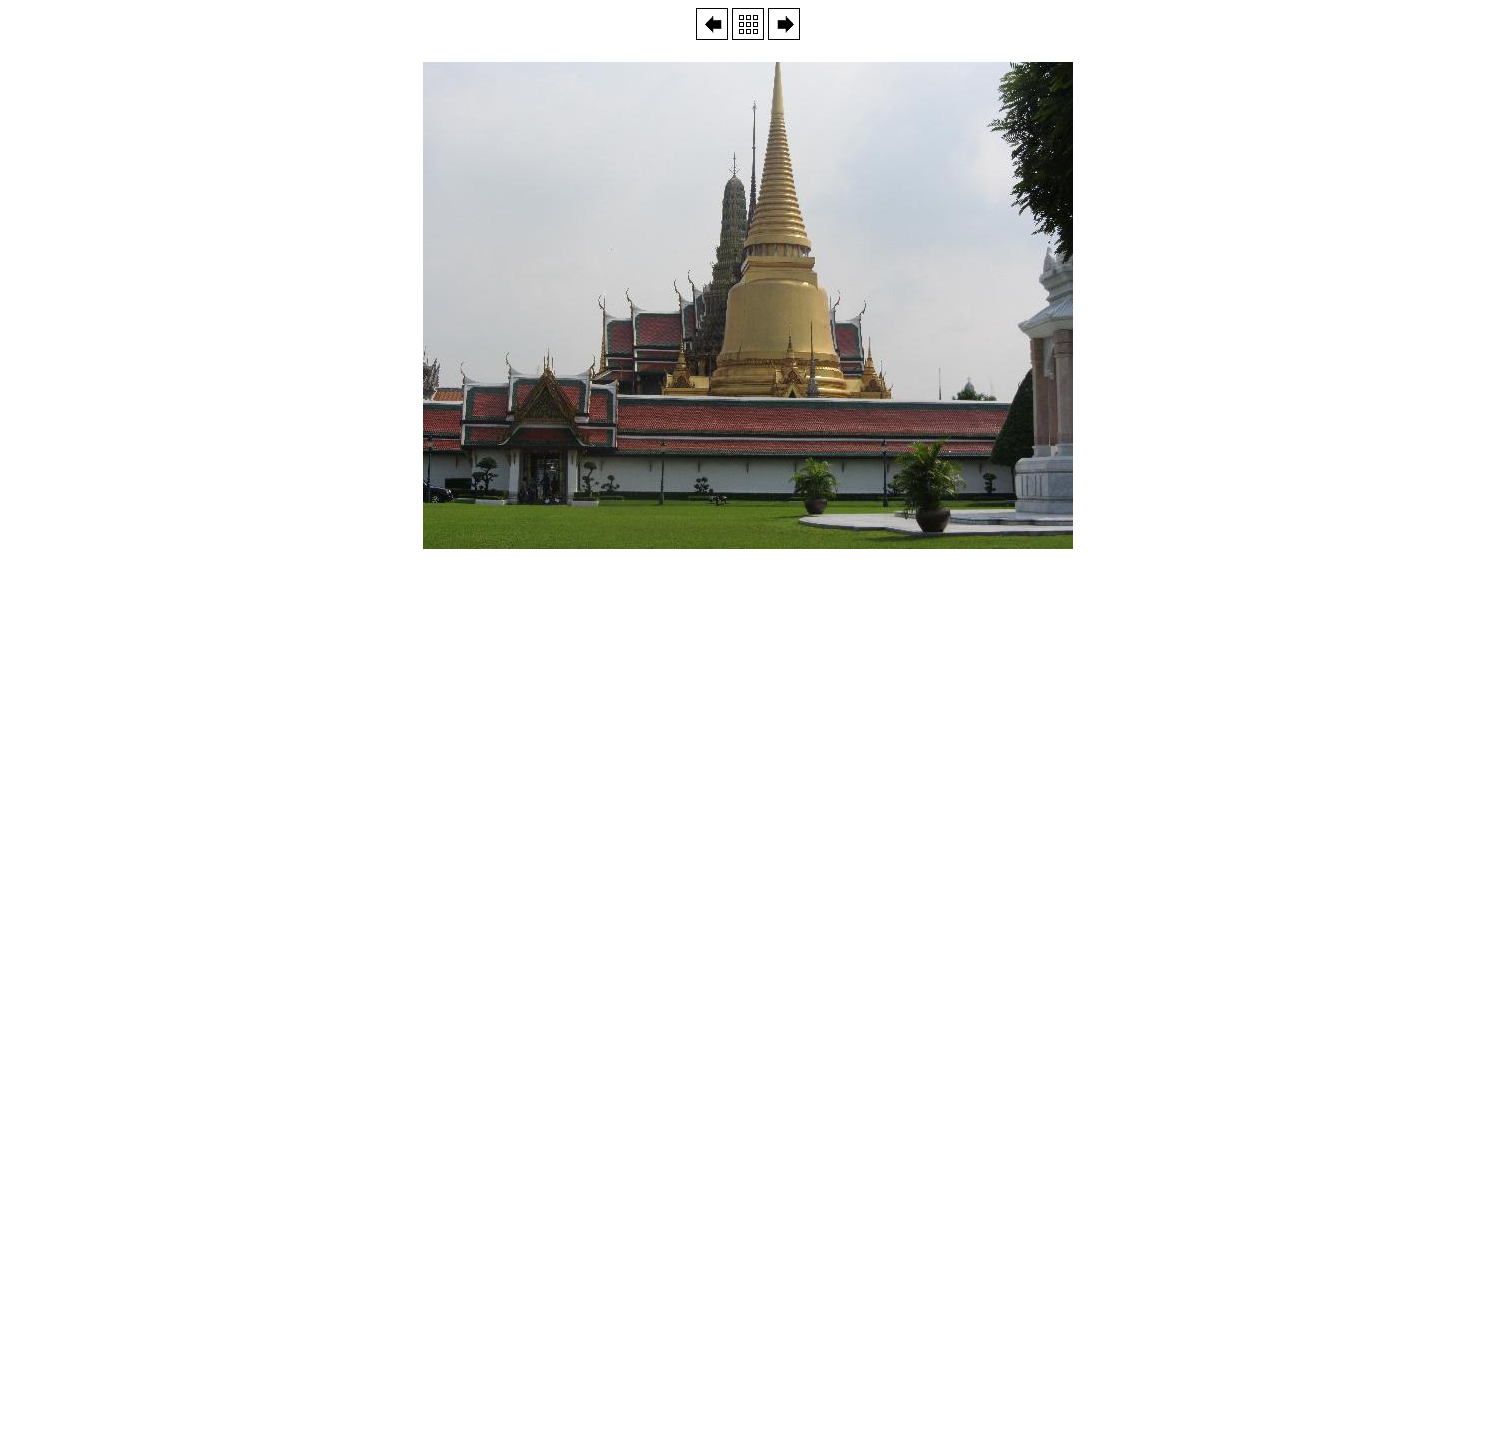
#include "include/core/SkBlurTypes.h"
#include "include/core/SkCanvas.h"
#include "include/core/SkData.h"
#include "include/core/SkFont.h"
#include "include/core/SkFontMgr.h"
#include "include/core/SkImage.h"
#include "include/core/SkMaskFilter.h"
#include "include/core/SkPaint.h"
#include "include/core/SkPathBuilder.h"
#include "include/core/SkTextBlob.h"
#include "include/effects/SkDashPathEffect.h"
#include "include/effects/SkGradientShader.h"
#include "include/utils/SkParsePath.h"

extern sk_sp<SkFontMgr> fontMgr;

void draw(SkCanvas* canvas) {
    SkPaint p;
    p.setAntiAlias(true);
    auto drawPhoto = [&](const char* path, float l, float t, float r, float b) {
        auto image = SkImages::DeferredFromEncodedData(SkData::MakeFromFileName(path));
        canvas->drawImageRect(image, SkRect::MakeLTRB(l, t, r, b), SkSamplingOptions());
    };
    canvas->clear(0xFFFFFFFF);
    drawPhoto("media/1.png", 696, 8, 728, 40);
    drawPhoto("media/2.png", 732, 8, 764, 40);
    drawPhoto("media/3.png", 768, 8, 800, 40);
    drawPhoto("media/4.png", 423, 62, 1073, 549);
}
